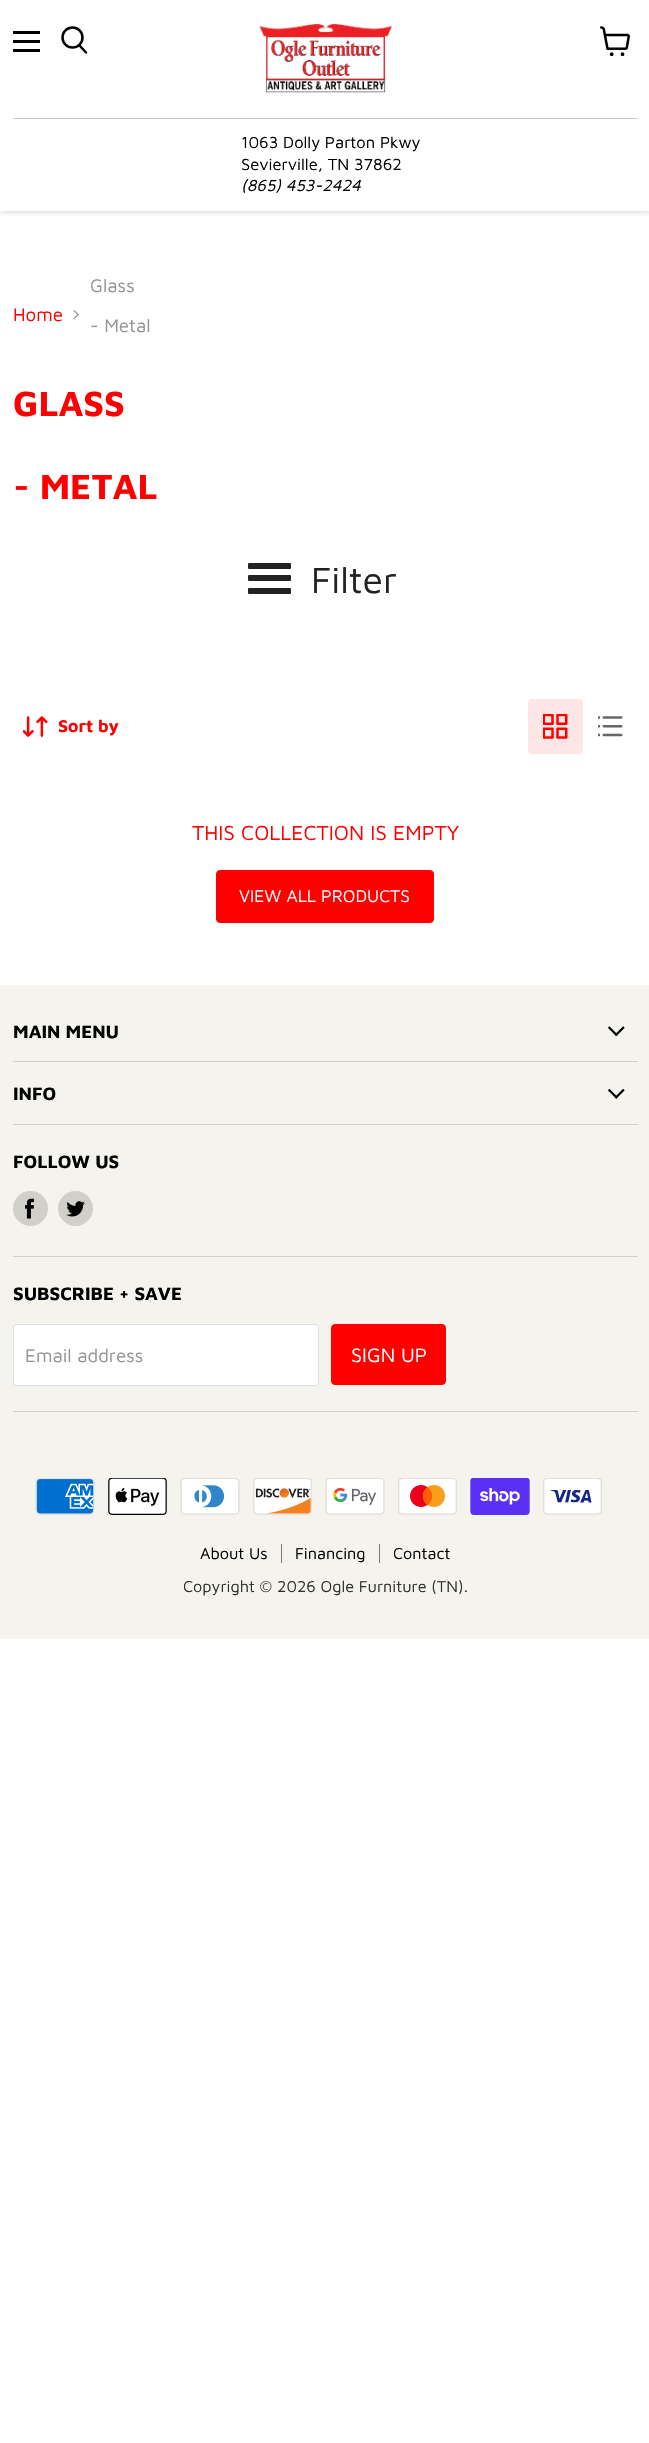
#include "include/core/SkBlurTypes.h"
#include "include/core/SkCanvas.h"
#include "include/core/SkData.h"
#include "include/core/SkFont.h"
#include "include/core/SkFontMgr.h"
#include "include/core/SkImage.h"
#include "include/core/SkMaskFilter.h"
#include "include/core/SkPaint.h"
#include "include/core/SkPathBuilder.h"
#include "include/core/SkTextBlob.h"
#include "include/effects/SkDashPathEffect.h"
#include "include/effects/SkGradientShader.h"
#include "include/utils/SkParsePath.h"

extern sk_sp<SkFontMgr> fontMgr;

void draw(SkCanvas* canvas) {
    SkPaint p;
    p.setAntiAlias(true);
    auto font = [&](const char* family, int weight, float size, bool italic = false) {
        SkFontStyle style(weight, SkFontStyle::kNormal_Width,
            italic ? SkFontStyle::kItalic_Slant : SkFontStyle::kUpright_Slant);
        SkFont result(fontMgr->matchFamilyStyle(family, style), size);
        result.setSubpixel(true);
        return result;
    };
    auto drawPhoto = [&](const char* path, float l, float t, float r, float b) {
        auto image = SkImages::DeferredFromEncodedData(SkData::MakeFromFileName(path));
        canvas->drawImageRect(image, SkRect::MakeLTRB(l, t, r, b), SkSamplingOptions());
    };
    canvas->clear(0xFFFFFFFF);
    canvas->save();
    canvas->clipRect(SkRect::MakeLTRB(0, 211, 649, 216));
    p.setColor(0x40808080);
    p.setMaskFilter(SkMaskFilter::MakeBlur(kNormal_SkBlurStyle, 2.5f));
    canvas->drawRect(SkRect::MakeLTRB(0, 1, 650, 213), p);
    p.setMaskFilter(nullptr);
    canvas->restore();
    {
        const struct { float l, t, r, b; SkColor color; } items[] = {
            {13, 31, 40, 34, 0xFF000000},
            {13, 40, 40, 43, 0xFF000000},
            {13, 49, 40, 52, 0xFF000000},
        };
        for (auto [l, t, r, b, color] : items) {
            p.setColor(color);
            canvas->drawRect(SkRect::MakeLTRB(l, t, r, b), p);
        }
    }
    p.setStyle(SkPaint::kStroke_Style);
    p.setStrokeWidth(2.5f);
    p.setStrokeCap(SkPaint::kRound_Cap);
    canvas->drawPath(SkPathBuilder().moveTo(86, 52.5f).lineTo(79.5f, 45.5f).detach(), p);
    p.setStrokeCap(SkPaint::kButt_Cap);
    canvas->drawCircle(72.5f, 37.5f, 10, p);
    drawPhoto("media/1.png", 600, 26, 630, 56);
    drawPhoto("media/2.png", 259, 23, 392, 93);
    p.setStyle(SkPaint::kFill_Style);
    p.setColor(0xFFCCCCCC);
    canvas->drawRect(SkRect::MakeLTRB(13, 118, 638, 119), p);
    auto font1 = font("Maven Pro", 400, 16.5f);
    p.setColor(0xFF000000);
    canvas->drawString("1063 Dolly Parton Pkwy", 241, 148, font1, p);
    canvas->drawString("Sevierville, TN 37862", 241, 170, font1, p);
    auto font2 = font("Maven Pro", 400, 16.5f, true);
    canvas->drawString("(865) 453-2424", 241, 191, font2, p);
    auto font3 = font("Maven Pro", 400, 18.75f);
    p.setColor(0xFFFF0000);
    canvas->drawString("Home", 13, 321, font3, p);
    drawPhoto("media/3.png", 73, 310, 79, 319);
    p.setColor(0xFF949494);
    canvas->drawString("Glass", 90, 292, font3, p);
    canvas->drawString("- Metal", 90, 332, font3, p);
    auto font4 = font("Maven Pro", 700, 36);
    p.setColor(0xFFFF0000);
    canvas->drawString("GLASS", 13, 416, font4, p);
    canvas->drawString("- METAL", 13, 499, font4, p);
    p.setColor(0xFF222222);
    canvas->drawRoundRect(SkRect::MakeLTRB(248, 575, 291, 581), 1, 1, p);
    canvas->drawRoundRect(SkRect::MakeLTRB(248, 563, 291, 569), 1, 1, p);
    canvas->drawRoundRect(SkRect::MakeLTRB(248, 588, 291, 594), 1, 1, p);
    auto font5 = font("Maven Pro", 400, 37.5f);
    canvas->drawString("Filter", 311, 593, font5, p);
    drawPhoto("media/4.png", 23, 716, 48, 737);
    auto font6 = font("Maven Pro", 700, 17.5f);
    p.setColor(0xFFFF0000);
    canvas->drawString("Sort by", 58, 732, font6, p);
    p.setColor(0xFFFFE6E6);
    canvas->drawRoundRect(SkRect::MakeLTRB(528, 699, 583, 754), 4, 4, p);
    drawPhoto("media/5.png", 543, 714, 568, 739);
    drawPhoto("media/6.png", 598, 716, 623, 737);
    auto font7 = font("Maven Pro", 400, 21);
    p.setColor(0xFFFF0000);
    canvas->drawString("THIS COLLECTION IS EMPTY", 192, 840, font7, p);
    canvas->drawRoundRect(SkRect::MakeLTRB(216.5f, 870.5f, 433.5f, 922.5f), 3.5f, 3.5f, p);
    p.setStyle(SkPaint::kStroke_Style);
    p.setStrokeWidth(1);
    canvas->drawRoundRect(SkRect::MakeLTRB(216.5f, 870.5f, 433.5f, 922.5f), 3.5f, 3.5f, p);
    auto font8 = font("Maven Pro", 400, 17.5f);
    p.setStyle(SkPaint::kFill_Style);
    p.setColor(0xFFFFFFFF);
    canvas->drawString("VIEW ALL PRODUCTS", 239, 902, font8, p);
    p.setColor(0xFFF5F3ED);
    canvas->drawRect(SkRect::MakeLTRB(0, 985, 649, 1639), p);
    p.setColor(0xFFD0CFC9);
    canvas->drawRect(SkRect::MakeLTRB(13, 1061, 638, 1062), p);
    auto font9 = font("Maven Pro", 700, 18.5f);
    p.setColor(0xFF000000);
    canvas->drawString("MAIN MENU", 13, 1038, font9, p);
    drawPhoto("media/7.png", 608, 1026, 625, 1036);
    p.setColor(0xFFD0CFC9);
    canvas->drawRect(SkRect::MakeLTRB(13, 1124, 638, 1125), p);
    p.setColor(0xFF000000);
    canvas->drawString("INFO", 13, 1100, font9, p);
    drawPhoto("media/8.png", 608, 1089, 625, 1099);
    p.setColor(0xFFD0CFC9);
    canvas->drawRect(SkRect::MakeLTRB(13, 1256, 638, 1257), p);
    p.setColor(0xFF000000);
    canvas->drawString("FOLLOW US", 13, 1168, font9, p);
    p.setColor(0xFFD0CFC9);
    canvas->drawCircle(30.5f, 1208.5f, 17.5f, p);
    drawPhoto("media/9.png", 25, 1198, 34, 1219);
    canvas->drawCircle(75.5f, 1208.5f, 17.5f, p);
    drawPhoto("media/10.png", 66, 1201, 85, 1217);
    canvas->drawRect(SkRect::MakeLTRB(13, 1411, 638, 1412), p);
    p.setColor(0xFF000000);
    canvas->drawString("SUBSCRIBE + SAVE", 13, 1300, font9, p);
    p.setColor(0xFFFFFFFF);
    canvas->drawRoundRect(SkRect::MakeLTRB(13.5f, 1324.5f, 318.5f, 1385.5f), 3.5f, 3.5f, p);
    p.setStyle(SkPaint::kStroke_Style);
    p.setColor(0xFFDDDDDD);
    canvas->drawRoundRect(SkRect::MakeLTRB(13.5f, 1324.5f, 318.5f, 1385.5f), 3.5f, 3.5f, p);
    p.setStyle(SkPaint::kFill_Style);
    p.setColor(0xFF949494);
    canvas->drawString("Email address", 25, 1362, font3, p);
    p.setColor(0xFFFF0000);
    canvas->drawRoundRect(SkRect::MakeLTRB(331.5f, 1324.5f, 445.5f, 1384.5f), 3.5f, 3.5f, p);
    p.setStyle(SkPaint::kStroke_Style);
    canvas->drawRoundRect(SkRect::MakeLTRB(331.5f, 1324.5f, 445.5f, 1384.5f), 3.5f, 3.5f, p);
    auto font10 = font("Maven Pro", 400, 20);
    p.setStyle(SkPaint::kFill_Style);
    p.setColor(0xFFFFFFFF);
    canvas->drawString("SIGN UP", 351, 1362, font10, p);
    drawPhoto("media/11.png", 35, 1478, 95, 1515);
    drawPhoto("media/12.png", 108, 1478, 167, 1515);
    drawPhoto("media/13.png", 180, 1478, 240, 1515);
    drawPhoto("media/14.png", 253, 1478, 312, 1515);
    drawPhoto("media/15.png", 325, 1478, 385, 1515);
    drawPhoto("media/16.png", 398, 1478, 457, 1515);
    drawPhoto("media/17.png", 470, 1478, 530, 1515);
    drawPhoto("media/18.png", 543, 1478, 602, 1515);
    p.setColor(0xFF7B7A77);
    canvas->drawRect(SkRect::MakeLTRB(281, 1544, 282, 1563), p);
    auto font11 = font("Maven Pro", 400, 16.25f);
    p.setColor(0xFF000000);
    canvas->drawString("About Us", 200, 1559, font11, p);
    p.setColor(0xFF7B7A77);
    canvas->drawRect(SkRect::MakeLTRB(379, 1544, 380, 1563), p);
    p.setColor(0xFF000000);
    canvas->drawString("Financing", 295, 1559, font11, p);
    canvas->drawString("Contact", 393, 1559, font11, p);
    p.setColor(0xFF31312F);
    canvas->drawString("Copyright © 2026 Ogle Furniture (TN).", 183, 1592, font11, p);
}
